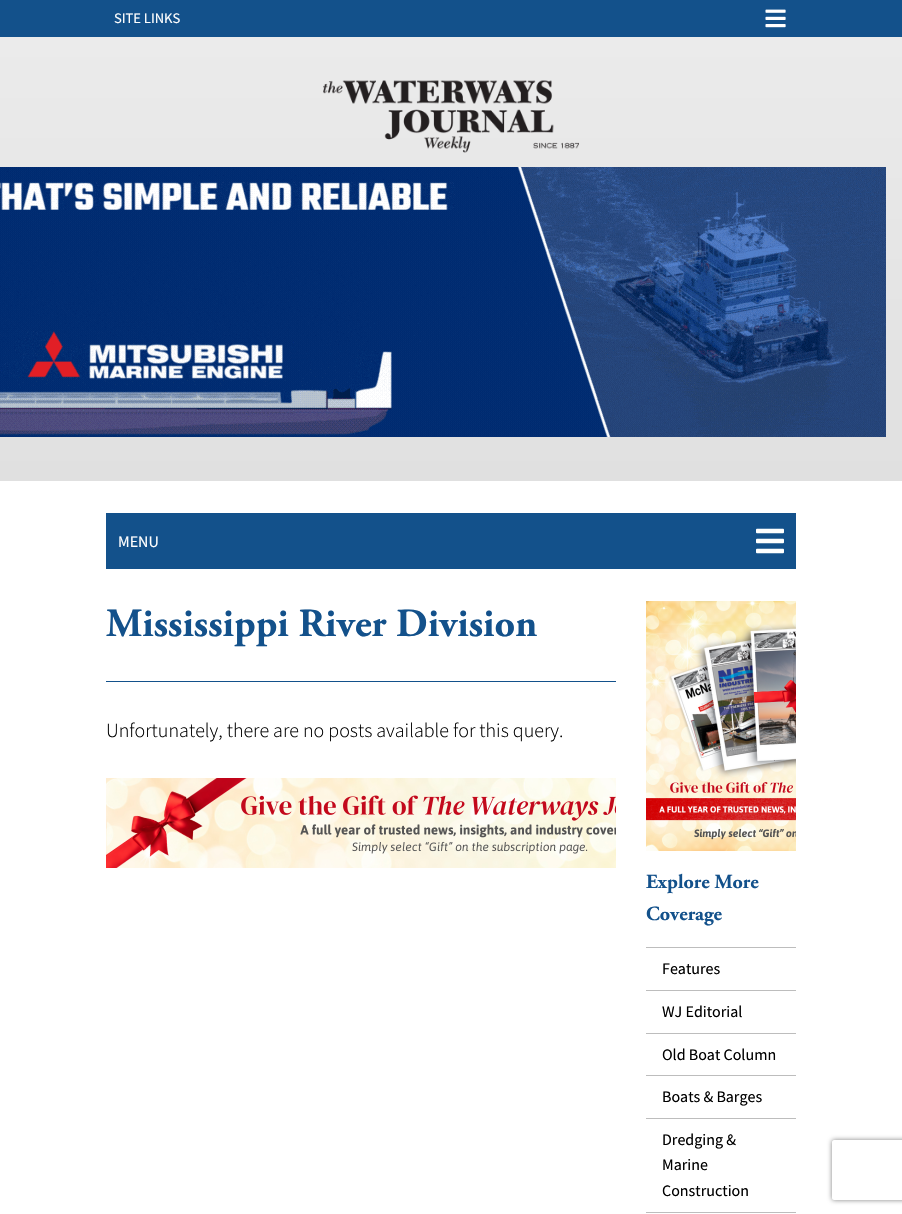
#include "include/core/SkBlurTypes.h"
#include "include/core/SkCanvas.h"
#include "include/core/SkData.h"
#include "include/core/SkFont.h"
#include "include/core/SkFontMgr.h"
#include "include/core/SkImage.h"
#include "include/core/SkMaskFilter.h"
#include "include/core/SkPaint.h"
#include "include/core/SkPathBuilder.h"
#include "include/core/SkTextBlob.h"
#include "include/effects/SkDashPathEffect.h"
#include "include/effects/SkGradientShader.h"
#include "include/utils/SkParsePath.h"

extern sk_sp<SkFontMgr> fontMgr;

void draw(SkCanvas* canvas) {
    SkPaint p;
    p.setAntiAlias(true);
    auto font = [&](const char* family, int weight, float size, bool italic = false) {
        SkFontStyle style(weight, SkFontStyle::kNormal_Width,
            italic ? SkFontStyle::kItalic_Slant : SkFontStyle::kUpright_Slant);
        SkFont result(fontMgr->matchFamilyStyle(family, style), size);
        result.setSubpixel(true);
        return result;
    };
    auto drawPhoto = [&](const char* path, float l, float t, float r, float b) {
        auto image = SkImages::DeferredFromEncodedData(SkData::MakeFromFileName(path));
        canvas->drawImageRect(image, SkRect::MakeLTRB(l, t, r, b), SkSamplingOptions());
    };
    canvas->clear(0xFFFFFFFF);
    p.setColor(0xFF13518B);
    canvas->drawRect(SkRect::MakeLTRB(0, 0, 902, 37), p);
    auto font1 = font("Source Sans Pro", 400, 14.5f);
    p.setColor(0xFFFFFFFF);
    canvas->drawString("SITE LINKS", 114, 23, font1, p);
    drawPhoto("media/1.png", 765, 9, 786, 28);
    {
        const SkColor colors[] = {0xFFEBEBEB, 0xFFE0E0E0};
        const float stops[] = {0, 1};
        const SkPoint ends[] = {{451, 37}, {451, 481}};
        p.setShader(SkGradientShader::MakeLinear(ends, colors, stops, 2, SkTileMode::kClamp));
        p.setAlpha(255);
    }
    canvas->drawRect(SkRect::MakeLTRB(0, 37, 902, 481), p);
    drawPhoto("media/2.png", 323, 80, 579, 153);
    drawPhoto("media/3.png", 0, 167, 886, 437);
    p.setShader(nullptr);
    p.setColor(0xFF13518B);
    canvas->drawRect(SkRect::MakeLTRB(106, 513, 796, 569), p);
    auto font2 = font("Source Sans Pro", 400, 16);
    p.setColor(0xFFFFFFFF);
    canvas->drawString("MENU", 118, 547, font2, p);
    drawPhoto("media/4.png", 756, 528, 784, 554);
    p.setColor(0xFF13518B);
    canvas->drawRect(SkRect::MakeLTRB(106, 681, 616, 682), p);
    auto font3 = font("Adobe Garamond", 700, 40);
    canvas->drawString("Mississippi River Division", 106, 636, font3, p);
    auto font4 = font("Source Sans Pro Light", 300, 20);
    p.setColor(0xFF000000);
    canvas->drawString("Unfortunately, there are no posts available for this query.", 106, 737, font4, p);
    drawPhoto("media/5.png", 106, 778, 616, 868);
    drawPhoto("media/6.png", 646, 601, 796, 851);
    auto font5 = font("Adobe Garamond", 700, 20);
    p.setColor(0xFF13518B);
    canvas->drawString("Explore More", 646, 888, font5, p);
    canvas->drawString("Coverage", 646, 920, font5, p);
    p.setColor(0xFFBDBDBD);
    canvas->drawRect(SkRect::MakeLTRB(646, 947, 796, 948), p);
    canvas->drawRect(SkRect::MakeLTRB(646, 990, 796, 991), p);
    p.setColor(0xFF000000);
    canvas->drawString("Features", 662, 974, font2, p);
    p.setColor(0xFFBDBDBD);
    canvas->drawRect(SkRect::MakeLTRB(646, 1033, 796, 1034), p);
    p.setColor(0xFF000000);
    canvas->drawString("WJ Editorial", 662, 1017, font2, p);
    p.setColor(0xFFBDBDBD);
    canvas->drawRect(SkRect::MakeLTRB(646, 1075, 796, 1076), p);
    p.setColor(0xFF000000);
    canvas->drawString("Old Boat Column", 662, 1060, font2, p);
    p.setColor(0xFFBDBDBD);
    canvas->drawRect(SkRect::MakeLTRB(646, 1118, 796, 1119), p);
    p.setColor(0xFF000000);
    canvas->drawString("Boats & Barges", 662, 1102, font2, p);
    p.setColor(0xFFBDBDBD);
    canvas->drawRect(SkRect::MakeLTRB(646, 1212, 796, 1213), p);
    p.setColor(0xFF000000);
    {
        const struct { const char* s; float x, y; } items[] = {
            {"Dredging &", 662, 1145},
            {"Marine", 662, 1170},
            {"Construction", 662, 1196},
        };
        for (auto [s, x, y] : items) {
            canvas->drawString(s, x, y, font2, p);
        }
    }
    canvas->save();
    canvas->clipPath(SkPathBuilder(SkPathFillType::kEvenOdd).moveTo(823, 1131).lineTo(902, 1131).lineTo(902, 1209).lineTo(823, 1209).close().moveTo(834, 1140).lineTo(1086, 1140).cubicTo(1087, 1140, 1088, 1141, 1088, 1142).lineTo(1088, 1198).cubicTo(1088, 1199, 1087, 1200, 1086, 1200).lineTo(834, 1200).cubicTo(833, 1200, 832, 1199, 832, 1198).lineTo(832, 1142).cubicTo(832, 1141, 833, 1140, 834, 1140).close().detach(), true);
    p.setColor(0xFF808080);
    p.setMaskFilter(SkMaskFilter::MakeBlur(kNormal_SkBlurStyle, 2.5f));
    canvas->drawRoundRect(SkRect::MakeLTRB(832, 1140, 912, 1200), 2, 2, p);
    p.setMaskFilter(nullptr);
    canvas->restore();
}
